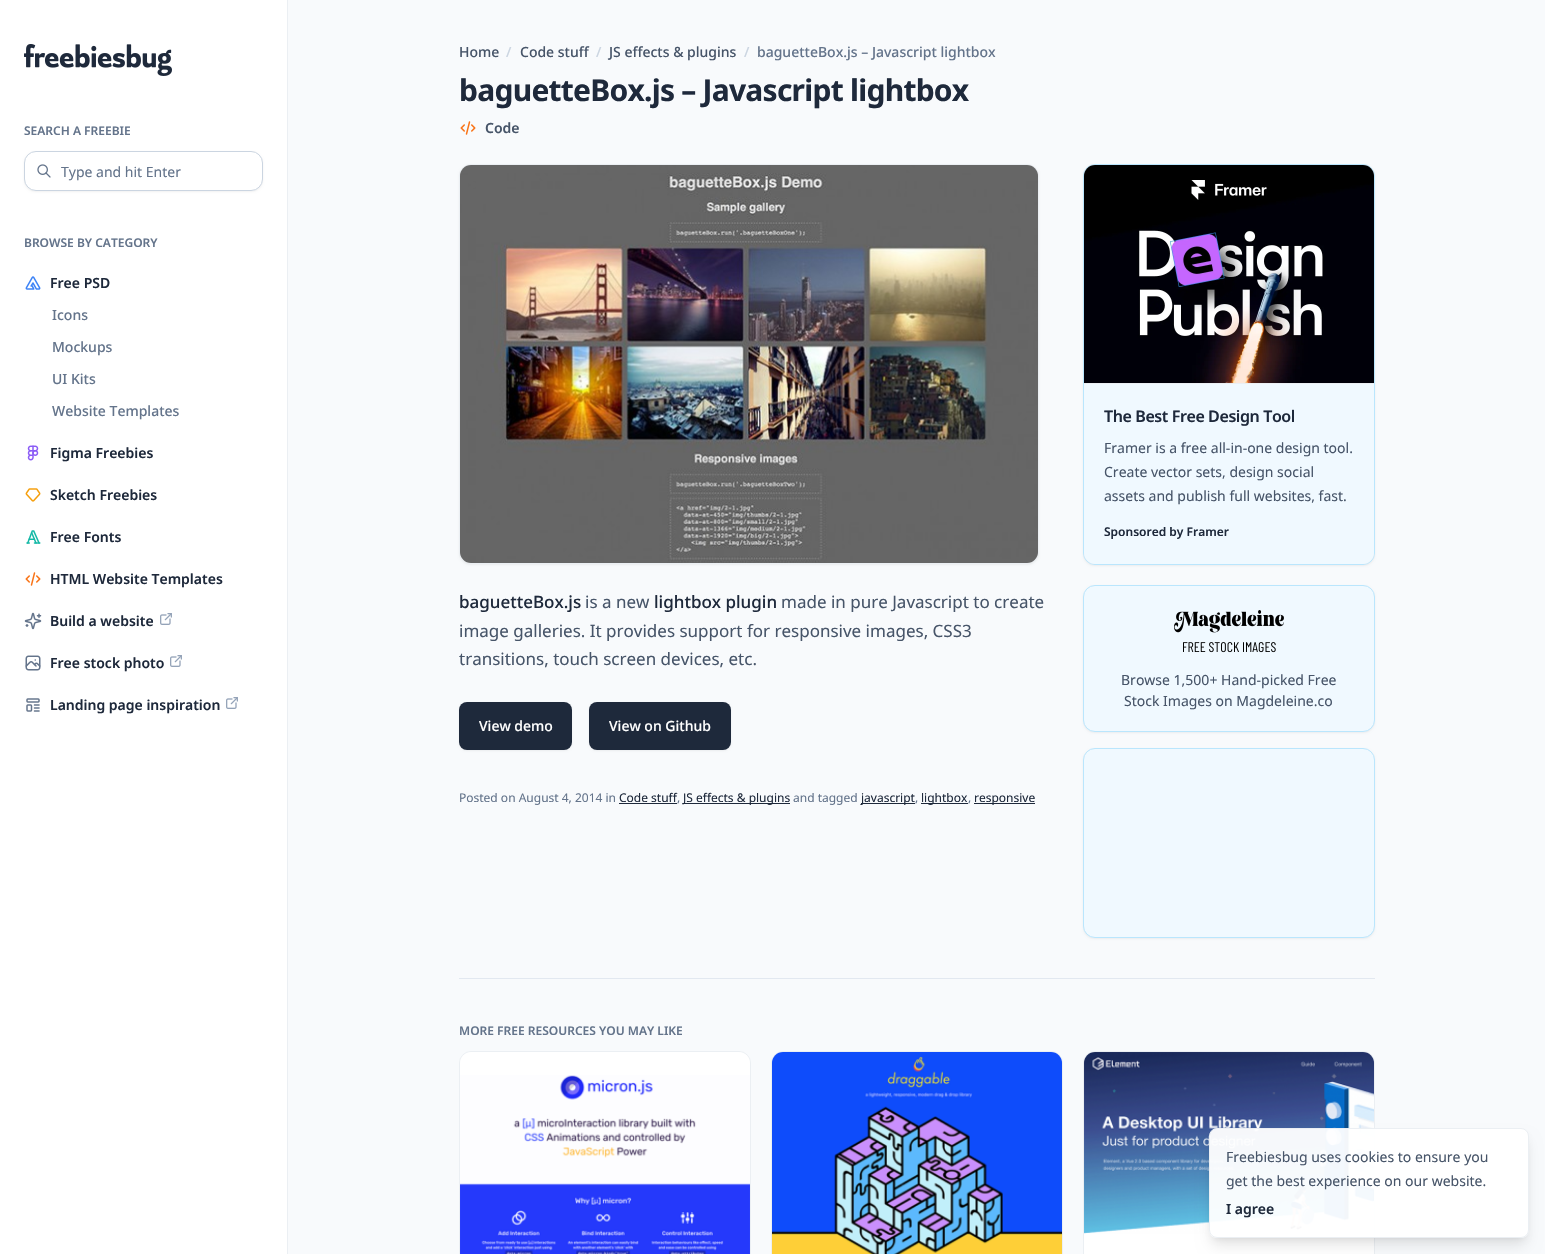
#include "include/core/SkBlurTypes.h"
#include "include/core/SkCanvas.h"
#include "include/core/SkData.h"
#include "include/core/SkFont.h"
#include "include/core/SkFontMgr.h"
#include "include/core/SkImage.h"
#include "include/core/SkMaskFilter.h"
#include "include/core/SkPaint.h"
#include "include/core/SkPathBuilder.h"
#include "include/core/SkTextBlob.h"
#include "include/effects/SkDashPathEffect.h"
#include "include/effects/SkGradientShader.h"
#include "include/utils/SkParsePath.h"

extern sk_sp<SkFontMgr> fontMgr;

void draw(SkCanvas* canvas) {
    SkPaint p;
    p.setAntiAlias(true);
    auto font = [&](const char* family, int weight, float size, bool italic = false) {
        SkFontStyle style(weight, SkFontStyle::kNormal_Width,
            italic ? SkFontStyle::kItalic_Slant : SkFontStyle::kUpright_Slant);
        SkFont result(fontMgr->matchFamilyStyle(family, style), size);
        result.setSubpixel(true);
        return result;
    };
    auto drawTracked = [&](const char* s, float x, float y, const SkFont& font, const SkPaint& ink, float letter, float word) {
        std::vector<SkGlyphID> glyphs(font.countText(s, strlen(s), SkTextEncoding::kUTF8));
        std::vector<float> xs(glyphs.size());
        font.textToGlyphs(s, strlen(s), SkTextEncoding::kUTF8, glyphs);
        font.getXPos(glyphs, xs, x);
        float extra = 0;
        for (size_t i = 0; i < glyphs.size(); i++) {
            xs[i] += extra;
            extra += letter + word * (glyphs[i] == font.unicharToGlyph(' '));
        }
        canvas->drawTextBlob(SkTextBlob::MakeFromPosHGlyphs(glyphs, xs, y, font), 0, 0, ink);
    };
    auto drawPhoto = [&](const char* path, float l, float t, float r, float b) {
        auto image = SkImages::DeferredFromEncodedData(SkData::MakeFromFileName(path));
        canvas->drawImageRect(image, SkRect::MakeLTRB(l, t, r, b), SkSamplingOptions());
    };
    canvas->clear(0xFFFFFFFF);
    p.setColor(0xFFEBEFF3);
    canvas->drawRect(SkRect::MakeLTRB(287, 0, 288, 1254), p);
    drawPhoto("media/1.png", 24, 44, 172, 76);
    auto font1 = font("Noto Sans", 600, 12);
    p.setColor(0xFF64748B);
    canvas->drawString("SEARCH A FREEBIE", 24, 135, font1, p);
    p.setColor(0x0D000000);
    p.setMaskFilter(SkMaskFilter::MakeBlur(kNormal_SkBlurStyle, 1));
    canvas->drawRoundRect(SkRect::MakeLTRB(24, 152, 263, 192), 12, 12, p);
    p.setMaskFilter(nullptr);
    p.setColor(0xFFFFFFFF);
    canvas->drawRoundRect(SkRect::MakeLTRB(24.5f, 151.5f, 262.5f, 190.5f), 11.5f, 11.5f, p);
    p.setStyle(SkPaint::kStroke_Style);
    p.setStrokeWidth(1);
    p.setColor(0xFFCBD5E1);
    canvas->drawRoundRect(SkRect::MakeLTRB(24.5f, 151.5f, 262.5f, 190.5f), 11.5f, 11.5f, p);
    drawPhoto("media/2.png", 37, 164, 51, 178);
    auto font2 = font("Noto Sans", 400, 14);
    p.setStyle(SkPaint::kFill_Style);
    p.setColor(0xFF64748B);
    canvas->drawString("Type and hit Enter", 61, 177, font2, p);
    canvas->drawString("BROWSE BY CATEGORY", 24, 247, font1, p);
    drawPhoto("media/3.png", 25, 276, 41, 290);
    auto font3 = font("Noto Sans", 600, 14);
    p.setColor(0xFF1E293B);
    canvas->drawString("Free PSD", 50, 288, font3, p);
    auto font4 = font("Noto Sans", 500, 14);
    p.setColor(0xFF64748B);
    {
        const struct { const char* s; float x, y; } items[] = {
            {"Icons", 52, 320},
            {"Mockups", 52, 352},
            {"UI Kits", 52, 384},
            {"Website Templates", 52, 416},
        };
        for (auto [s, x, y] : items) {
            canvas->drawString(s, x, y, font4, p);
        }
    }
    drawPhoto("media/4.png", 27, 445, 39, 461);
    p.setColor(0xFF1E293B);
    canvas->drawString("Figma Freebies", 50, 458, font3, p);
    drawPhoto("media/5.png", 25, 488, 41, 502);
    canvas->drawString("Sketch Freebies", 50, 500, font3, p);
    drawPhoto("media/6.png", 26, 530, 41, 544);
    canvas->drawString("Free Fonts", 50, 542, font3, p);
    drawPhoto("media/7.png", 25, 572, 41, 586);
    canvas->drawString("HTML Website Templates", 50, 584, font3, p);
    drawPhoto("media/8.png", 24, 612, 42, 630);
    canvas->drawString("Build a website", 50, 626, font3, p);
    drawPhoto("media/9.png", 160, 613, 172, 625);
    drawPhoto("media/10.png", 25, 655, 41, 671);
    canvas->drawString("Free stock photo", 50, 668, font3, p);
    drawPhoto("media/9.png", 170, 655, 182, 667);
    drawPhoto("media/11.png", 26, 698, 40, 712);
    canvas->drawString("Landing page inspiration", 50, 710, font3, p);
    drawPhoto("media/9.png", 226, 697, 238, 709);
    p.setColor(0xFFF8FAFC);
    canvas->drawRect(SkRect::MakeLTRB(288, 0, 1545, 1254), p);
    p.setColor(0xFF475569);
    canvas->drawString("Home", 459, 57, font4, p);
    p.setColor(0xFFCBD5E1);
    canvas->drawString("/", 506, 57, font4, p);
    p.setColor(0xFF475569);
    canvas->drawString("Code stuff", 520, 57, font4, p);
    p.setColor(0xFFCBD5E1);
    canvas->drawString("/", 596, 57, font4, p);
    p.setColor(0xFF475569);
    canvas->drawString("JS effects & plugins", 609, 57, font4, p);
    p.setColor(0xFFCBD5E1);
    canvas->drawString("/", 744, 57, font4, p);
    p.setColor(0xFF64748B);
    canvas->drawString("baguetteBox.js – Javascript lightbox", 757, 57, font4, p);
    auto font5 = font("Noto Sans", 700, 30);
    p.setColor(0xFF1E293B);
    drawTracked("baguetteBox.js – Javascript lightbox", 459, 101, font5, p, -0.75f, 0);
    drawPhoto("media/12.png", 460, 121, 476, 135);
    p.setColor(0xFF475569);
    canvas->drawString("Code", 485, 133, font3, p);
    p.setColor(0x0D000000);
    p.setMaskFilter(SkMaskFilter::MakeBlur(kNormal_SkBlurStyle, 1));
    canvas->drawRoundRect(SkRect::MakeLTRB(459, 165, 1039, 565), 12, 12, p);
    p.setMaskFilter(nullptr);
    p.setStyle(SkPaint::kStroke_Style);
    p.setColor(0xFFEBEFF3);
    canvas->drawRoundRect(SkRect::MakeLTRB(459.5f, 164.5f, 1038.5f, 563.5f), 11.5f, 11.5f, p);
    drawPhoto("media/13.png", 460, 165, 1038, 563);
    auto font6 = font("Noto Sans", 500, 17);
    p.setStyle(SkPaint::kFill_Style);
    p.setColor(0xFF1E293B);
    canvas->drawString("baguetteBox.js", 459, 608, font6, p);
    auto font7 = font("Noto Sans", 400, 17);
    p.setColor(0xFF475569);
    canvas->drawString("is a new", 585, 608, font7, p);
    p.setColor(0xFF1E293B);
    canvas->drawString("lightbox plugin", 654, 608, font6, p);
    p.setColor(0xFF475569);
    {
        const struct { const char* s; float x, y; } items[] = {
            {"made in pure Javascript to create", 781, 608},
            {"image galleries. It provides support for responsive images, CSS3", 459, 637},
            {"transitions, touch screen devices, etc.", 459, 665},
        };
        for (auto [s, x, y] : items) {
            canvas->drawString(s, x, y, font7, p);
        }
    }
    p.setColor(0x0D000000);
    p.setMaskFilter(SkMaskFilter::MakeBlur(kNormal_SkBlurStyle, 1));
    canvas->drawRoundRect(SkRect::MakeLTRB(459, 703, 572, 751), 8, 8, p);
    p.setMaskFilter(nullptr);
    p.setColor(0xFF1E293B);
    canvas->drawRoundRect(SkRect::MakeLTRB(459, 702, 572, 750), 8, 8, p);
    p.setColor(0xFFFFFFFF);
    canvas->drawString("View demo", 479, 731, font4, p);
    p.setColor(0x0D000000);
    p.setMaskFilter(SkMaskFilter::MakeBlur(kNormal_SkBlurStyle, 1));
    canvas->drawRoundRect(SkRect::MakeLTRB(589, 703, 731, 751), 8, 8, p);
    p.setMaskFilter(nullptr);
    p.setColor(0xFF1E293B);
    canvas->drawRoundRect(SkRect::MakeLTRB(589, 702, 731, 750), 8, 8, p);
    p.setColor(0xFFFFFFFF);
    canvas->drawString("View on Github", 609, 731, font4, p);
    auto font8 = font("Noto Sans", 400, 12);
    p.setColor(0xFF64748B);
    canvas->drawString("Posted on August 4, 2014 in", 459, 802, font8, p);
    p.setColor(0xFF1E293B);
    canvas->drawString("Code stuff", 619, 802, font8, p);
    canvas->drawRect(SkRect::MakeLTRB(619, 803, 677, 804), p);
    canvas->drawRect(SkRect::MakeLTRB(683, 803, 790, 804), p);
    canvas->drawString("JS effects & plugins", 683, 802, font8, p);
    p.setColor(0xFF64748B);
    canvas->drawString("and tagged", 793, 802, font8, p);
    p.setColor(0xFF1E293B);
    canvas->drawRect(SkRect::MakeLTRB(861, 803, 915, 804), p);
    canvas->drawString("javascript", 861, 802, font8, p);
    canvas->drawRect(SkRect::MakeLTRB(921, 803, 968, 804), p);
    canvas->drawString("lightbox", 921, 802, font8, p);
    canvas->drawRect(SkRect::MakeLTRB(974, 803, 1035, 804), p);
    canvas->drawString("responsive", 974, 802, font8, p);
    p.setColor(0xFF64748B);
    {
        const struct { const char* s; float x, y; } items[] = {
            {",", 677, 802},
            {",", 915, 802},
            {",", 968, 802},
        };
        for (auto [s, x, y] : items) {
            canvas->drawString(s, x, y, font8, p);
        }
    }
    p.setColor(0x0D000000);
    p.setMaskFilter(SkMaskFilter::MakeBlur(kNormal_SkBlurStyle, 1));
    canvas->drawRoundRect(SkRect::MakeLTRB(1083, 165, 1375, 566), 12, 12, p);
    p.setMaskFilter(nullptr);
    p.setStyle(SkPaint::kStroke_Style);
    p.setColor(0xFFBAE6FD);
    canvas->drawRoundRect(SkRect::MakeLTRB(1083.5f, 164.5f, 1374.5f, 564.5f), 11.5f, 11.5f, p);
    drawPhoto("media/14.png", 1084, 165, 1374, 383);
    p.setStyle(SkPaint::kFill_Style);
    p.setColor(0xFFF0F9FF);
    canvas->drawPath(SkPathBuilder().moveTo(1084, 384).lineTo(1374, 384).lineTo(1374, 553).cubicTo(1374, 559, 1369, 564, 1363, 564).lineTo(1095, 564).cubicTo(1089, 564, 1084, 559, 1084, 553).close().detach(), p);
    p.setColor(0xFFEBEFF3);
    canvas->drawRect(SkRect::MakeLTRB(1084, 383, 1374, 384), p);
    canvas->save();
    canvas->clipRect(SkRect::MakeLTRB(1104, 404, 1354, 508));
    auto font9 = font("Noto Sans", 600, 16);
    p.setColor(0xFF1E293B);
    drawTracked("The Best Free Design Tool", 1104, 422, font9, p, -0.4f, 0);
    canvas->restore();
    p.setColor(0xFF475569);
    {
        const struct { const char* s; float x, y; } items[] = {
            {"Framer is a free all-in-one design tool.", 1104, 453},
            {"Create vector sets, design social", 1104, 477},
            {"assets and publish full websites, fast.", 1104, 501},
        };
        for (auto [s, x, y] : items) {
            canvas->drawString(s, x, y, font2, p);
        }
    }
    p.setColor(0xFF1E293B);
    canvas->drawString("Sponsored by Framer", 1104, 536, font1, p);
    p.setColor(0x0D000000);
    p.setMaskFilter(SkMaskFilter::MakeBlur(kNormal_SkBlurStyle, 1));
    canvas->drawRoundRect(SkRect::MakeLTRB(1083, 586, 1375, 733), 12, 12, p);
    p.setMaskFilter(nullptr);
    p.setColor(0xFFF0F9FF);
    canvas->drawRoundRect(SkRect::MakeLTRB(1083.5f, 585.5f, 1374.5f, 731.5f), 11.5f, 11.5f, p);
    p.setStyle(SkPaint::kStroke_Style);
    p.setColor(0xFFBAE6FD);
    canvas->drawRoundRect(SkRect::MakeLTRB(1083.5f, 585.5f, 1374.5f, 731.5f), 11.5f, 11.5f, p);
    drawPhoto("media/15.png", 1174, 610, 1284, 653);
    p.setStyle(SkPaint::kFill_Style);
    p.setColor(0xFF475569);
    canvas->drawString("Browse 1,500+ Hand-picked Free", 1121, 685, font2, p);
    canvas->drawString("Stock Images on Magdeleine.co", 1124, 706, font2, p);
    p.setColor(0x0D000000);
    p.setMaskFilter(SkMaskFilter::MakeBlur(kNormal_SkBlurStyle, 1));
    canvas->drawRoundRect(SkRect::MakeLTRB(1083, 749, 1375, 939), 12, 12, p);
    p.setMaskFilter(nullptr);
    p.setColor(0xFFF0F9FF);
    canvas->drawRoundRect(SkRect::MakeLTRB(1083.5f, 748.5f, 1374.5f, 937.5f), 11.5f, 11.5f, p);
    p.setStyle(SkPaint::kStroke_Style);
    p.setColor(0xFFBAE6FD);
    canvas->drawRoundRect(SkRect::MakeLTRB(1083.5f, 748.5f, 1374.5f, 937.5f), 11.5f, 11.5f, p);
    p.setStyle(SkPaint::kFill_Style);
    p.setColor(0xFFE2E8F0);
    canvas->drawRect(SkRect::MakeLTRB(459, 978, 1375, 979), p);
    p.setColor(0xFF64748B);
    canvas->drawString("MORE FREE RESOURCES YOU MAY LIKE", 459, 1035, font1, p);
    p.setStyle(SkPaint::kStroke_Style);
    p.setColor(0xFFEBEFF3);
    canvas->drawRoundRect(SkRect::MakeLTRB(459.5f, 1051.5f, 750.5f, 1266.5f), 11.5f, 11.5f, p);
    p.setStyle(SkPaint::kFill_Style);
    p.setColor(0xFFFFFFFF);
    canvas->drawPath(SkPathBuilder().moveTo(471, 1052).lineTo(739, 1052).cubicTo(745, 1052, 750, 1057, 750, 1063).lineTo(750, 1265).lineTo(460, 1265).lineTo(460, 1063).cubicTo(460, 1057, 465, 1052, 471, 1052).close().detach(), p);
    drawPhoto("media/16.png", 460, 1075, 750, 1254);
    p.setStyle(SkPaint::kStroke_Style);
    p.setColor(0xFFEBEFF3);
    canvas->drawRoundRect(SkRect::MakeLTRB(771.5f, 1051.5f, 1062.5f, 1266.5f), 11.5f, 11.5f, p);
    drawPhoto("media/17.png", 772, 1052, 1062, 1254);
    canvas->drawRoundRect(SkRect::MakeLTRB(1083.5f, 1051.5f, 1374.5f, 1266.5f), 11.5f, 11.5f, p);
    p.setStyle(SkPaint::kFill_Style);
    p.setColor(0xFFFFFFFF);
    canvas->drawPath(SkPathBuilder().moveTo(1095, 1052).lineTo(1363, 1052).cubicTo(1369, 1052, 1374, 1057, 1374, 1063).lineTo(1374, 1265).lineTo(1084, 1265).lineTo(1084, 1063).cubicTo(1084, 1057, 1089, 1052, 1095, 1052).close().detach(), p);
    drawPhoto("media/18.png", 1084, 1052, 1374, 1234);
    canvas->save();
    canvas->clipPath(SkPathBuilder(SkPathFillType::kEvenOdd).moveTo(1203, 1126).lineTo(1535, 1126).lineTo(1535, 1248).lineTo(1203, 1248).close().moveTo(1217, 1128).lineTo(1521, 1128).cubicTo(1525.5f, 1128, 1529, 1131.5f, 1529, 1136).lineTo(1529, 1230).cubicTo(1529, 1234.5f, 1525.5f, 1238, 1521, 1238).lineTo(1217, 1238).cubicTo(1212.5f, 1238, 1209, 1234.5f, 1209, 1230).lineTo(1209, 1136).cubicTo(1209, 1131.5f, 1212.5f, 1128, 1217, 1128).close().detach(), true);
    p.setColor(0x1A000000);
    p.setMaskFilter(SkMaskFilter::MakeBlur(kNormal_SkBlurStyle, 3));
    canvas->drawRoundRect(SkRect::MakeLTRB(1213, 1136, 1525, 1238), 4, 4, p);
    p.setMaskFilter(nullptr);
    canvas->restore();
    canvas->save();
    canvas->clipPath(SkPathBuilder(SkPathFillType::kEvenOdd).moveTo(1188, 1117).lineTo(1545, 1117).lineTo(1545, 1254).lineTo(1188, 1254).close().moveTo(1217, 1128).lineTo(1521, 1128).cubicTo(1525.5f, 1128, 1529, 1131.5f, 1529, 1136).lineTo(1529, 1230).cubicTo(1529, 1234.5f, 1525.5f, 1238, 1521, 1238).lineTo(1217, 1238).cubicTo(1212.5f, 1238, 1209, 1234.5f, 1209, 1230).lineTo(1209, 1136).cubicTo(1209, 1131.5f, 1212.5f, 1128, 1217, 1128).close().detach(), true);
    p.setMaskFilter(SkMaskFilter::MakeBlur(kNormal_SkBlurStyle, 7.5f));
    canvas->drawRoundRect(SkRect::MakeLTRB(1212, 1141, 1526, 1245), 5, 5, p);
    p.setMaskFilter(nullptr);
    canvas->restore();
    p.setColor(0xF2FFFFFF);
    canvas->drawRoundRect(SkRect::MakeLTRB(1209.5f, 1128.5f, 1528.5f, 1237.5f), 7.5f, 7.5f, p);
    p.setStyle(SkPaint::kStroke_Style);
    p.setColor(0xFFEBEFF3);
    canvas->drawRoundRect(SkRect::MakeLTRB(1209.5f, 1128.5f, 1528.5f, 1237.5f), 7.5f, 7.5f, p);
    p.setStyle(SkPaint::kFill_Style);
    p.setColor(0xFF475569);
    canvas->drawString("Freebiesbug uses cookies to ensure you", 1226, 1162, font2, p);
    canvas->drawString("get the best experience on our website.", 1226, 1186, font2, p);
    p.setColor(0xFF1E293B);
    canvas->drawString("I agree", 1226, 1214, font3, p);
}
